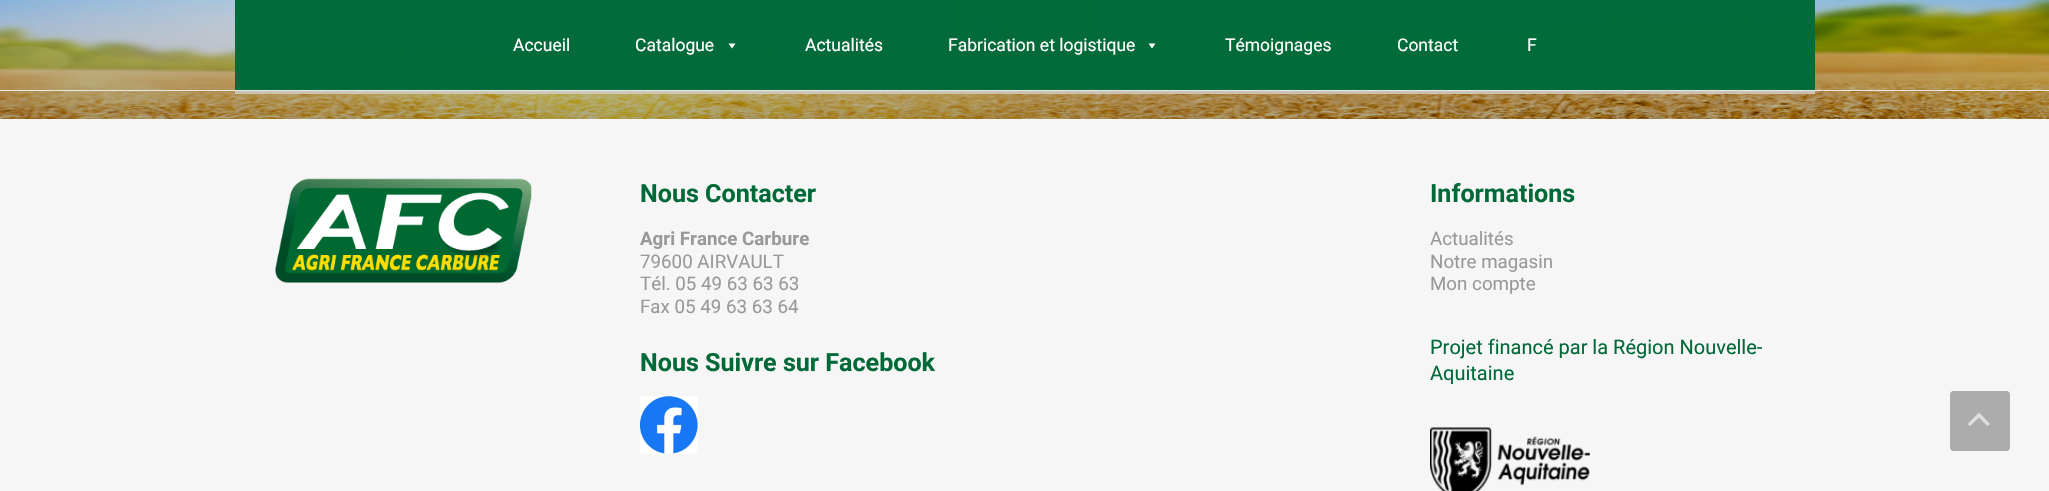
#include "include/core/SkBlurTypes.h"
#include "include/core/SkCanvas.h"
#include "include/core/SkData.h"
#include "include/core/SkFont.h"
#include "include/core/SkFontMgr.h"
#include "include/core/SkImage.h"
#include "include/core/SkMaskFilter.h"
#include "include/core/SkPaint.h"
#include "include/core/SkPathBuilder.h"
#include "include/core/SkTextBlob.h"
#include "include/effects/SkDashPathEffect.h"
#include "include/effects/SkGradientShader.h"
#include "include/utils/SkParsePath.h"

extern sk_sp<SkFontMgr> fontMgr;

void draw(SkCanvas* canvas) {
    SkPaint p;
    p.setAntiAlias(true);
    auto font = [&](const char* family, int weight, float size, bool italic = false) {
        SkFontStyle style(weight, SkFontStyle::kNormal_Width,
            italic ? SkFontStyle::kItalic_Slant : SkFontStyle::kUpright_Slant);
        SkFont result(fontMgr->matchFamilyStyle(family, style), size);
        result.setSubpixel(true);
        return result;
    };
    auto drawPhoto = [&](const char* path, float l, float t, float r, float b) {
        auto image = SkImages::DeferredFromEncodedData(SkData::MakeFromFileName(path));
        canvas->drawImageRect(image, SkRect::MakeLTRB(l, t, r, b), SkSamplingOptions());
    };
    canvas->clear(0xFFFFFFFF);
    drawPhoto("media/1.png", 0, 0, 2049, 119);
    p.setColor(0xCCD1D0CD);
    canvas->drawRect(SkRect::MakeLTRB(235, 0, 1815, 94), p);
    p.setColor(0xFFE9D304);
    canvas->drawRoundRect(SkRect::MakeLTRB(951, -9, 1099, 64), 19, 19, p);
    drawPhoto("media/2.png", 971, 13, 1003, 43);
    {
        const struct { float l, t, r, b; SkColor color; } items[] = {
            {0, 90, 2049, 91, 0xFFE7E7E7},
            {235, 0, 1815, 90, 0xE6006938},
            {235, 0, 1815, 90, 0xE6006938},
        };
        for (auto [l, t, r, b, color] : items) {
            p.setColor(color);
            canvas->drawRect(SkRect::MakeLTRB(l, t, r, b), p);
        }
    }
    auto font1 = font("Roboto", 400, 17.5f);
    p.setColor(0xFFFFFFFF);
    canvas->drawString("Accueil", 513, 51, font1, p);
    canvas->drawString("Catalogue", 635, 51, font1, p);
    canvas->drawPath(SkPathBuilder().moveTo(735.5f, 43.5f).lineTo(732, 48.5f).lineTo(728.5f, 43.5f).close().detach(), p);
    canvas->drawString("Actualités", 805, 51, font1, p);
    canvas->drawString("Fabrication et logistique", 948, 51, font1, p);
    canvas->drawPath(SkPathBuilder().moveTo(1155.5f, 43.5f).lineTo(1152, 48.5f).lineTo(1148.5f, 43.5f).close().detach(), p);
    {
        const struct { const char* s; float x, y; } items[] = {
            {"Témoignages", 1225, 51},
            {"Contact", 1397, 51},
            {"F", 1527, 51},
        };
        for (auto [s, x, y] : items) {
            canvas->drawString(s, x, y, font1, p);
        }
    }
    p.setColor(0xFFF6F6F6);
    canvas->drawRect(SkRect::MakeLTRB(0, 119, 2049, 491), p);
    drawPhoto("media/3.png", 275, 178, 532, 283);
    auto font2 = font("Roboto", 700, 25.1f);
    p.setColor(0xFF006938);
    canvas->drawString("Nous Contacter", 640, 202, font2, p);
    auto font3 = font("Roboto", 700, 18.75f);
    p.setColor(0xFF999999);
    canvas->drawString("Agri France Carbure", 640, 245, font3, p);
    auto font4 = font("Roboto", 400, 18.75f);
    {
        const struct { const char* s; float x, y; } items[] = {
            {"79600 AIRVAULT", 640, 268},
            {"Tél. 05 49 63 63 63", 640, 290},
            {"Fax 05 49 63 63 64", 640, 313},
        };
        for (auto [s, x, y] : items) {
            canvas->drawString(s, x, y, font4, p);
        }
    }
    p.setColor(0xFF006938);
    canvas->drawString("Nous Suivre sur Facebook", 640, 371, font2, p);
    drawPhoto("media/4.png", 640, 396, 698, 454);
    canvas->drawString("Informations", 1430, 202, font2, p);
    p.setColor(0xFF999999);
    {
        const struct { const char* s; float x, y; } items[] = {
            {"Actualités", 1430, 245},
            {"Notre magasin", 1430, 268},
            {"Mon compte", 1430, 290},
        };
        for (auto [s, x, y] : items) {
            canvas->drawString(s, x, y, font4, p);
        }
    }
    auto font5 = font("Roboto", 400, 20);
    p.setColor(0xFF006938);
    canvas->drawString("Projet financé par la Région Nouvelle-", 1430, 354, font5, p);
    canvas->drawString("Aquitaine", 1430, 380, font5, p);
    drawPhoto("media/5.png", 1430, 427, 1590, 491);
    p.setColor(0xFFACACAC);
    canvas->drawRoundRect(SkRect::MakeLTRB(1950, 391, 2010, 451), 4, 4, p);
    p.setColor(0xFFDFDFDF);
    canvas->drawPath(SkPathBuilder().moveTo(1987.5f, 426).lineTo(1979, 417.5f).lineTo(1970, 426).lineTo(1967.5f, 424).lineTo(1979, 412.5f).lineTo(1990, 424).close().detach(), p);
}
